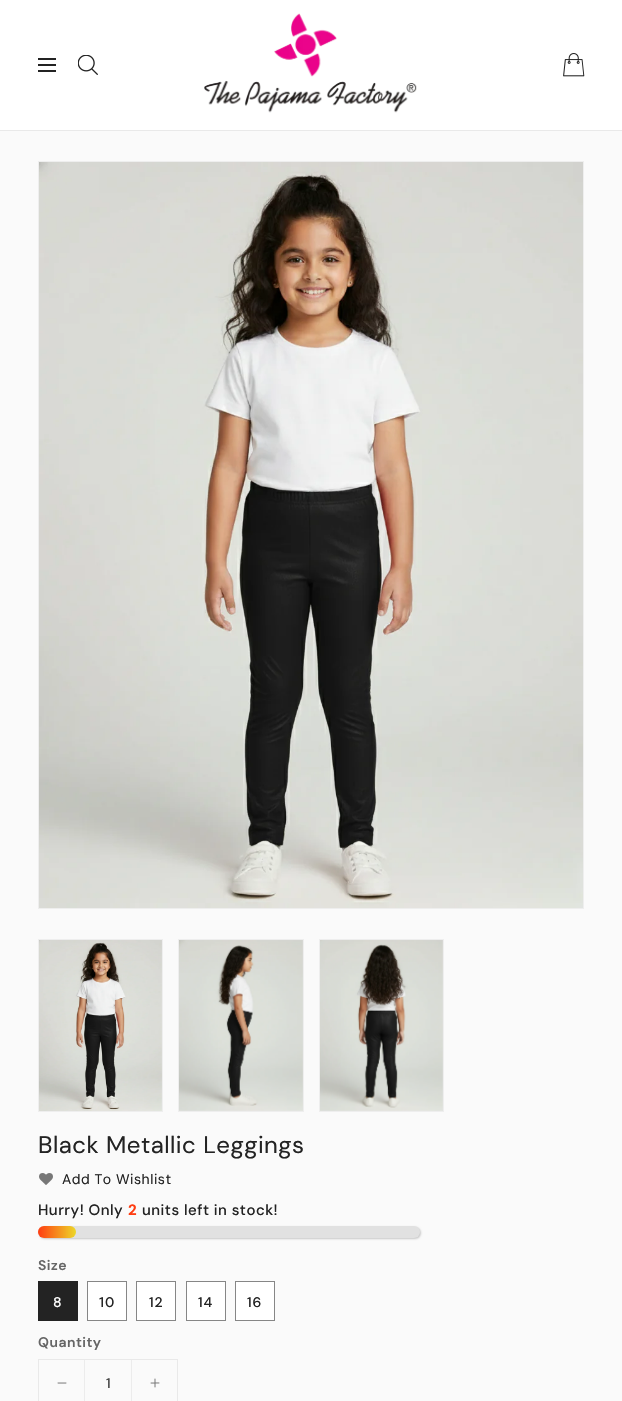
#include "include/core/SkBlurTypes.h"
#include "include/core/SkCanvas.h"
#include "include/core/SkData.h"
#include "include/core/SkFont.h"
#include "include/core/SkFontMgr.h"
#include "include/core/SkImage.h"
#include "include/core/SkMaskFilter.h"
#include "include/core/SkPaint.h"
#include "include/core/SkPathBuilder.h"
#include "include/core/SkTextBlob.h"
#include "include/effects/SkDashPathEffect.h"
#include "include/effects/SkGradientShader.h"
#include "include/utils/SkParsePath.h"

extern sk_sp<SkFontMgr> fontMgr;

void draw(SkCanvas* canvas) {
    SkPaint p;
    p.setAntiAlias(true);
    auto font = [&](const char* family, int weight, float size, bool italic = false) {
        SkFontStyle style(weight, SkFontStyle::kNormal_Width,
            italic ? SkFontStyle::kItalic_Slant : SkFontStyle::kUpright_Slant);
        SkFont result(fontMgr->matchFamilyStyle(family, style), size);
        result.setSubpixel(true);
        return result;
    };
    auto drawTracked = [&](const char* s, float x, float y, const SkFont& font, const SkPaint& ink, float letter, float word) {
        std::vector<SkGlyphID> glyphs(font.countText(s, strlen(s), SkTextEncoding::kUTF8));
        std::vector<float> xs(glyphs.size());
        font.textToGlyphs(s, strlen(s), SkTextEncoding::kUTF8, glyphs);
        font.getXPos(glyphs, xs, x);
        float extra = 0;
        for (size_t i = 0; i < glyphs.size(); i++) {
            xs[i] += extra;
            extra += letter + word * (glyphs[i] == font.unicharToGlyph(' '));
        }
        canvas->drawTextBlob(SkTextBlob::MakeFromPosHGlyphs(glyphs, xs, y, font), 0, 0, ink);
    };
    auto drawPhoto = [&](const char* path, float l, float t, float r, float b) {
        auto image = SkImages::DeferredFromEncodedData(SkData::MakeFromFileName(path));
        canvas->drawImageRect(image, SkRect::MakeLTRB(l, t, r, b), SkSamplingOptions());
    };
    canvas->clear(0xFFFAFAFA);
    {
        const struct { float l, t, r, b; SkColor color; } items[] = {
            {0, 0, 622, 130, 0xFFFFFFFF},
            {0, 130, 622, 131, 0xFFE9E9E9},
            {38, 58, 56, 60, 0xFF232323},
            {38, 64, 56, 66, 0xFF232323},
            {38, 70, 56, 72, 0xFF232323},
        };
        for (auto [l, t, r, b, color] : items) {
            p.setColor(color);
            canvas->drawRect(SkRect::MakeLTRB(l, t, r, b), p);
        }
    }
    drawPhoto("media/1.png", 78, 55, 98, 75);
    drawPhoto("media/2.png", 204, 13, 417, 113);
    drawPhoto("media/3.png", 563, 53, 585, 77);
    p.setStyle(SkPaint::kStroke_Style);
    p.setStrokeWidth(1);
    p.setColor(0xFFEEEEEE);
    canvas->drawRect(SkRect::MakeLTRB(38.5f, 161.5f, 583.5f, 908.5f), p);
    drawPhoto("media/4.png", 39, 162, 583, 908);
    canvas->drawRect(SkRect::MakeLTRB(38.5f, 939.5f, 162.5f, 1111.5f), p);
    drawPhoto("media/5.png", 39, 940, 162, 1111);
    p.setStyle(SkPaint::kFill_Style);
    p.setColor(0xFFE5E5E5);
    canvas->drawRect(SkRect::MakeLTRB(178.5f, 939.5f, 303.5f, 1111.5f), p);
    p.setStyle(SkPaint::kStroke_Style);
    p.setColor(0xFFEEEEEE);
    canvas->drawRect(SkRect::MakeLTRB(178.5f, 939.5f, 303.5f, 1111.5f), p);
    drawPhoto("media/6.png", 179, 940, 303, 1111);
    p.setStyle(SkPaint::kFill_Style);
    p.setColor(0xFFE5E5E5);
    canvas->drawRect(SkRect::MakeLTRB(319.5f, 939.5f, 443.5f, 1111.5f), p);
    p.setStyle(SkPaint::kStroke_Style);
    p.setColor(0xFFEEEEEE);
    canvas->drawRect(SkRect::MakeLTRB(319.5f, 939.5f, 443.5f, 1111.5f), p);
    drawPhoto("media/7.png", 320, 940, 443, 1111);
    auto font1 = font("DM Sans", 400, 24);
    p.setStyle(SkPaint::kFill_Style);
    p.setColor(0xFF232323);
    drawTracked("Black Metallic Leggings", 38, 1153, font1, p, 0.5f, 0);
    drawPhoto("media/8.png", 39, 1173, 53, 1185);
    auto font2 = font("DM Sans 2", 400, 14);
    drawTracked("Add To Wishlist", 62, 1184, font2, p, 0.5f, 0);
    auto font3 = font("DM Sans", 500, 15);
    drawTracked("Hurry! Only", 38, 1215, font3, p, 0.5f, 0);
    auto font4 = font("DM Sans", 700, 15);
    p.setColor(0xFFFF3D12);
    drawTracked("2", 128, 1215, font4, p, 0.5f, 0);
    p.setColor(0xFF232323);
    drawTracked("units left in stock!", 142, 1215, font3, p, 0.5f, 0);
    p.setColor(0x33000000);
    p.setMaskFilter(SkMaskFilter::MakeBlur(kNormal_SkBlurStyle, 1));
    canvas->drawRoundRect(SkRect::MakeLTRB(39, 1227, 421, 1239), 6, 6, p);
    p.setMaskFilter(nullptr);
    p.setColor(0xFFE1E1E1);
    canvas->drawRoundRect(SkRect::MakeLTRB(38, 1226, 420, 1238), 6, 6, p);
    {
        const SkColor colors[] = {0xFFFF3D12, 0xFFEDD728};
        const float stops[] = {0, 1};
        const SkPoint ends[] = {{38, 1232}, {76, 1232}};
        p.setShader(SkGradientShader::MakeLinear(ends, colors, stops, 2, SkTileMode::kClamp));
        p.setAlpha(255);
    }
    canvas->drawRoundRect(SkRect::MakeLTRB(38, 1226, 76, 1238), 6, 6, p);
    auto font5 = font("DM Sans", 600, 14);
    p.setShader(nullptr);
    p.setColor(0xFF666666);
    drawTracked("Size", 38, 1270, font5, p, 0.5f, 0);
    p.setColor(0xFF232323);
    canvas->drawRect(SkRect::MakeLTRB(38, 1281, 78, 1321), p);
    auto font6 = font("DM Sans 2", 500, 14);
    p.setColor(0xFFFFFFFF);
    drawTracked("8", 53, 1307, font6, p, 1, 0);
    canvas->drawRect(SkRect::MakeLTRB(87.5f, 1281.5f, 126.5f, 1320.5f), p);
    p.setStyle(SkPaint::kStroke_Style);
    p.setColor(0xFF868686);
    canvas->drawRect(SkRect::MakeLTRB(87.5f, 1281.5f, 126.5f, 1320.5f), p);
    p.setStyle(SkPaint::kFill_Style);
    p.setColor(0xFF232323);
    drawTracked("10", 99, 1307, font6, p, 1, 0);
    p.setColor(0xFFFFFFFF);
    canvas->drawRect(SkRect::MakeLTRB(136.5f, 1281.5f, 175.5f, 1320.5f), p);
    p.setStyle(SkPaint::kStroke_Style);
    p.setColor(0xFF868686);
    canvas->drawRect(SkRect::MakeLTRB(136.5f, 1281.5f, 175.5f, 1320.5f), p);
    auto font7 = font("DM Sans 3", 500, 14);
    p.setStyle(SkPaint::kFill_Style);
    p.setColor(0xFF232323);
    drawTracked("12", 149, 1307, font7, p, 1, 0);
    p.setColor(0xFFFFFFFF);
    canvas->drawRect(SkRect::MakeLTRB(186.5f, 1281.5f, 225.5f, 1320.5f), p);
    p.setStyle(SkPaint::kStroke_Style);
    p.setColor(0xFF868686);
    canvas->drawRect(SkRect::MakeLTRB(186.5f, 1281.5f, 225.5f, 1320.5f), p);
    p.setStyle(SkPaint::kFill_Style);
    p.setColor(0xFF232323);
    drawTracked("14", 198, 1307, font7, p, 1, 0);
    p.setColor(0xFFFFFFFF);
    canvas->drawRect(SkRect::MakeLTRB(235.5f, 1281.5f, 274.5f, 1320.5f), p);
    p.setStyle(SkPaint::kStroke_Style);
    p.setColor(0xFF868686);
    canvas->drawRect(SkRect::MakeLTRB(235.5f, 1281.5f, 274.5f, 1320.5f), p);
    p.setStyle(SkPaint::kFill_Style);
    p.setColor(0xFF232323);
    drawTracked("16", 247, 1307, font7, p, 1, 0);
    p.setColor(0xFF666666);
    drawTracked("Quantity", 38, 1347, font5, p, 0.5f, 0);
    p.setStyle(SkPaint::kStroke_Style);
    p.setColor(0xFFE9E9E9);
    canvas->drawRect(SkRect::MakeLTRB(38.5f, 1359.5f, 177.5f, 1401.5f), p);
    drawPhoto("media/9.png", 57, 1382, 67, 1384);
    p.setStyle(SkPaint::kFill_Style);
    p.setColor(0xFFECECEC);
    canvas->drawRect(SkRect::MakeLTRB(131, 1360, 132, 1401), p);
    canvas->drawRect(SkRect::MakeLTRB(84, 1360, 85, 1401), p);
    p.setColor(0xFF434343);
    canvas->drawString("1", 106, 1388, font7, p);
    drawPhoto("media/10.png", 150, 1378, 160, 1388);
}
